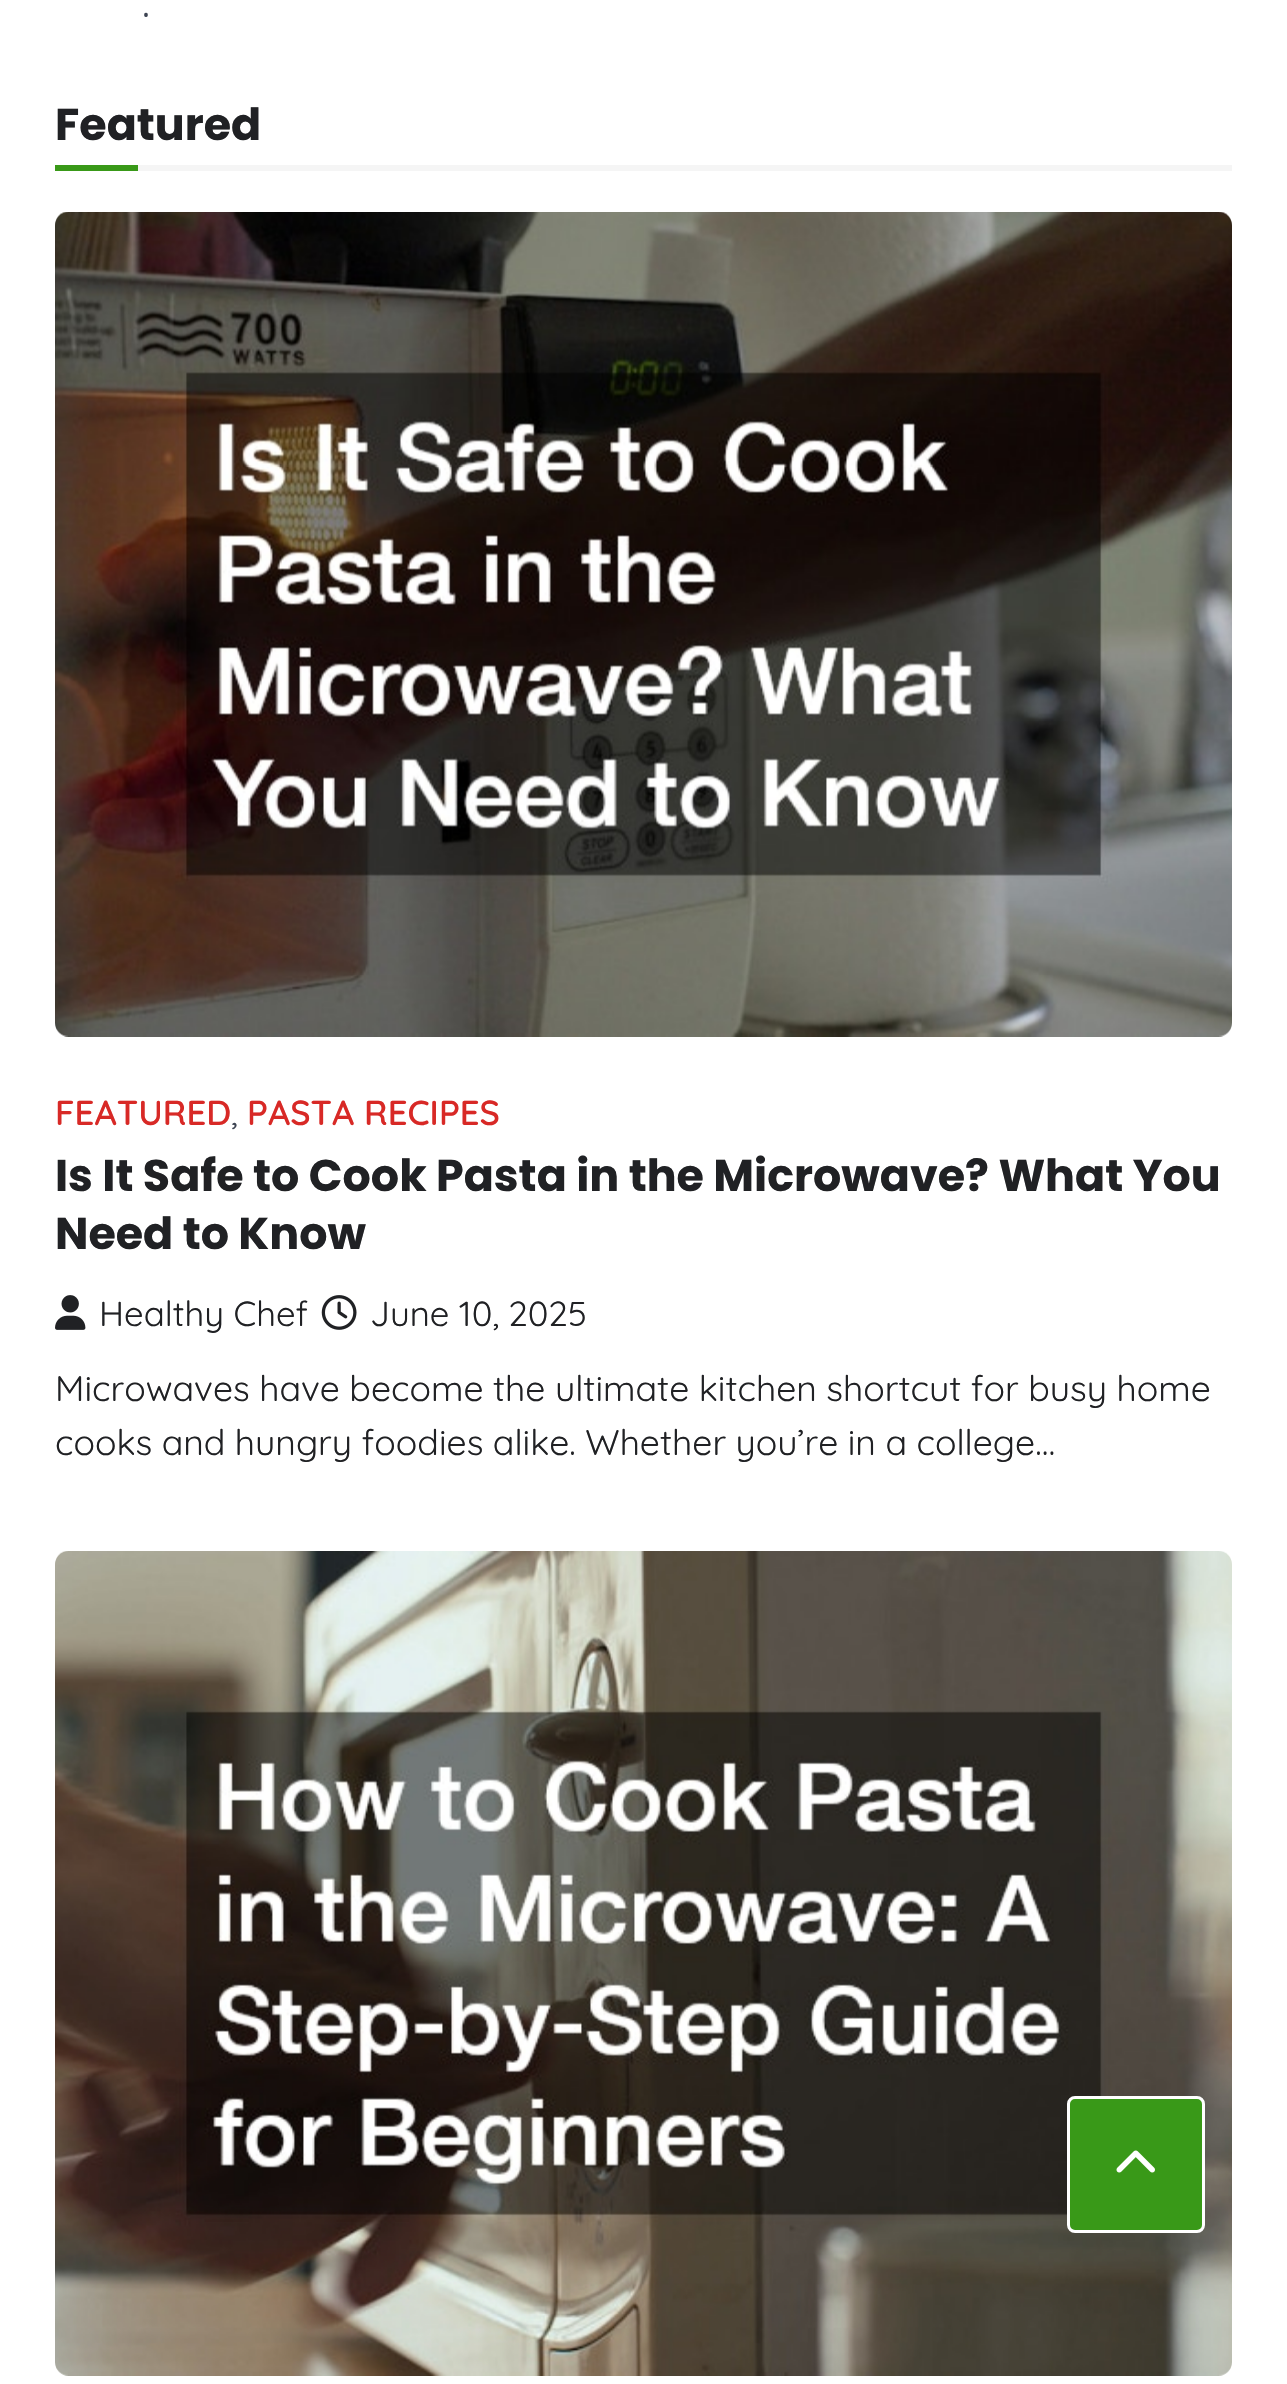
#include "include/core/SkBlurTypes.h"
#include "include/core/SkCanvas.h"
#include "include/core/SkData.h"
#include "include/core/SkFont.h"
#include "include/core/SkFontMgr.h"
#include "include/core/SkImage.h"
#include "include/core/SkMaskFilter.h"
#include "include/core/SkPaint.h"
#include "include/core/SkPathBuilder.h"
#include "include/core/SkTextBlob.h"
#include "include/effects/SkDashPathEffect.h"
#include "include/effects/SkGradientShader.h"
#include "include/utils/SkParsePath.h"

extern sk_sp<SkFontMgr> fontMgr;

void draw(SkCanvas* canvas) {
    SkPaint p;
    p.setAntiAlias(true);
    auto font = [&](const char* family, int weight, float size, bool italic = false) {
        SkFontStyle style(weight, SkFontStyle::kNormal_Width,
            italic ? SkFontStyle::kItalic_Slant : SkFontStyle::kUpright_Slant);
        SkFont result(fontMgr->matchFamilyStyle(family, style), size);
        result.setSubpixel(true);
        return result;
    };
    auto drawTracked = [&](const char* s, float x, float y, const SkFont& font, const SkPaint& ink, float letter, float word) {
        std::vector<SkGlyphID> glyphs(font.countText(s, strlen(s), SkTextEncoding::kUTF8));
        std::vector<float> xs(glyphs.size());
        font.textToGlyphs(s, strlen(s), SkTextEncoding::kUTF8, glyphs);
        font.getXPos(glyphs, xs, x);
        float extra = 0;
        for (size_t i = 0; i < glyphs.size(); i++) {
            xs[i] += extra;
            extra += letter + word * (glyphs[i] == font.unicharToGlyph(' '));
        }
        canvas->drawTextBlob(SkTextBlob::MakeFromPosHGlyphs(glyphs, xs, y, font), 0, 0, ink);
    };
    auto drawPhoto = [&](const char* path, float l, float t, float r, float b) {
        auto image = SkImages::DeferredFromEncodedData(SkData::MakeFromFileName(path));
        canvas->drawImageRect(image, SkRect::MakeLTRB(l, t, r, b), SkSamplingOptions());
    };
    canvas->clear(0xFFFFFFFF);
    auto font1 = font("Quicksand", 400, 44);
    p.setColor(0xFF3D4452);
    canvas->drawString(".", 142, 17, font1, p);
    p.setColor(0xFFF5F5F5);
    canvas->drawRect(SkRect::MakeLTRB(138, 165, 1232, 171), p);
    auto font2 = font("Poppins", 700, 44.4f);
    p.setColor(0xFF202124);
    canvas->drawString("Featured", 55, 140, font2, p);
    p.setColor(0xFF399918);
    canvas->drawRect(SkRect::MakeLTRB(55, 165, 138, 171), p);
    p.setColor(0xFFF0F2F7);
    canvas->drawRoundRect(SkRect::MakeLTRB(55, 212, 1232, 1037), 14, 14, p);
    drawPhoto("media/1.png", 55, 212, 1232, 1037);
    auto font3 = font("Quicksand", 600, 34.75f);
    p.setColor(0xFFD82926);
    canvas->drawString("FEATURED", 55, 1125, font3, p);
    auto font4 = font("Quicksand", 400, 34.75f);
    p.setColor(0xFF3D4452);
    canvas->drawString(",", 231, 1125, font4, p);
    p.setColor(0xFFD82926);
    canvas->drawString("PASTA RECIPES", 247, 1125, font3, p);
    p.setColor(0xFF202124);
    canvas->drawString("Is It Safe to Cook Pasta in the Microwave? What You", 55, 1191, font2, p);
    canvas->drawString("Need to Know", 55, 1249, font2, p);
    drawPhoto("media/2.png", 55, 1295, 86, 1330);
    canvas->drawString("Healthy Chef", 99, 1326, font4, p);
    drawPhoto("media/3.png", 321, 1295, 357, 1330);
    canvas->drawString("June 10, 2025", 370, 1326, font4, p);
    auto font5 = font("Quicksand", 400, 35.6f);
    drawTracked("Microwaves have become the ultimate kitchen shortcut for busy home", 55, 1401, font5, p, 0, -0.25f);
    drawTracked("cooks and hungry foodies alike. Whether you’re in a college…", 55, 1455, font5, p, 0, -0.25f);
    drawPhoto("media/4.png", 55, 1551, 1232, 2376);
    p.setColor(0xFF399918);
    canvas->drawRoundRect(SkRect::MakeLTRB(1068.5f, 2097.5f, 1203.5f, 2231.5f), 6.5f, 6.5f, p);
    p.setStyle(SkPaint::kStroke_Style);
    p.setStrokeWidth(3);
    p.setColor(0xFFFFFFFF);
    canvas->drawRoundRect(SkRect::MakeLTRB(1068.5f, 2097.5f, 1203.5f, 2231.5f), 6.5f, 6.5f, p);
    drawPhoto("media/5.png", 1116, 2150, 1155, 2173);
}
